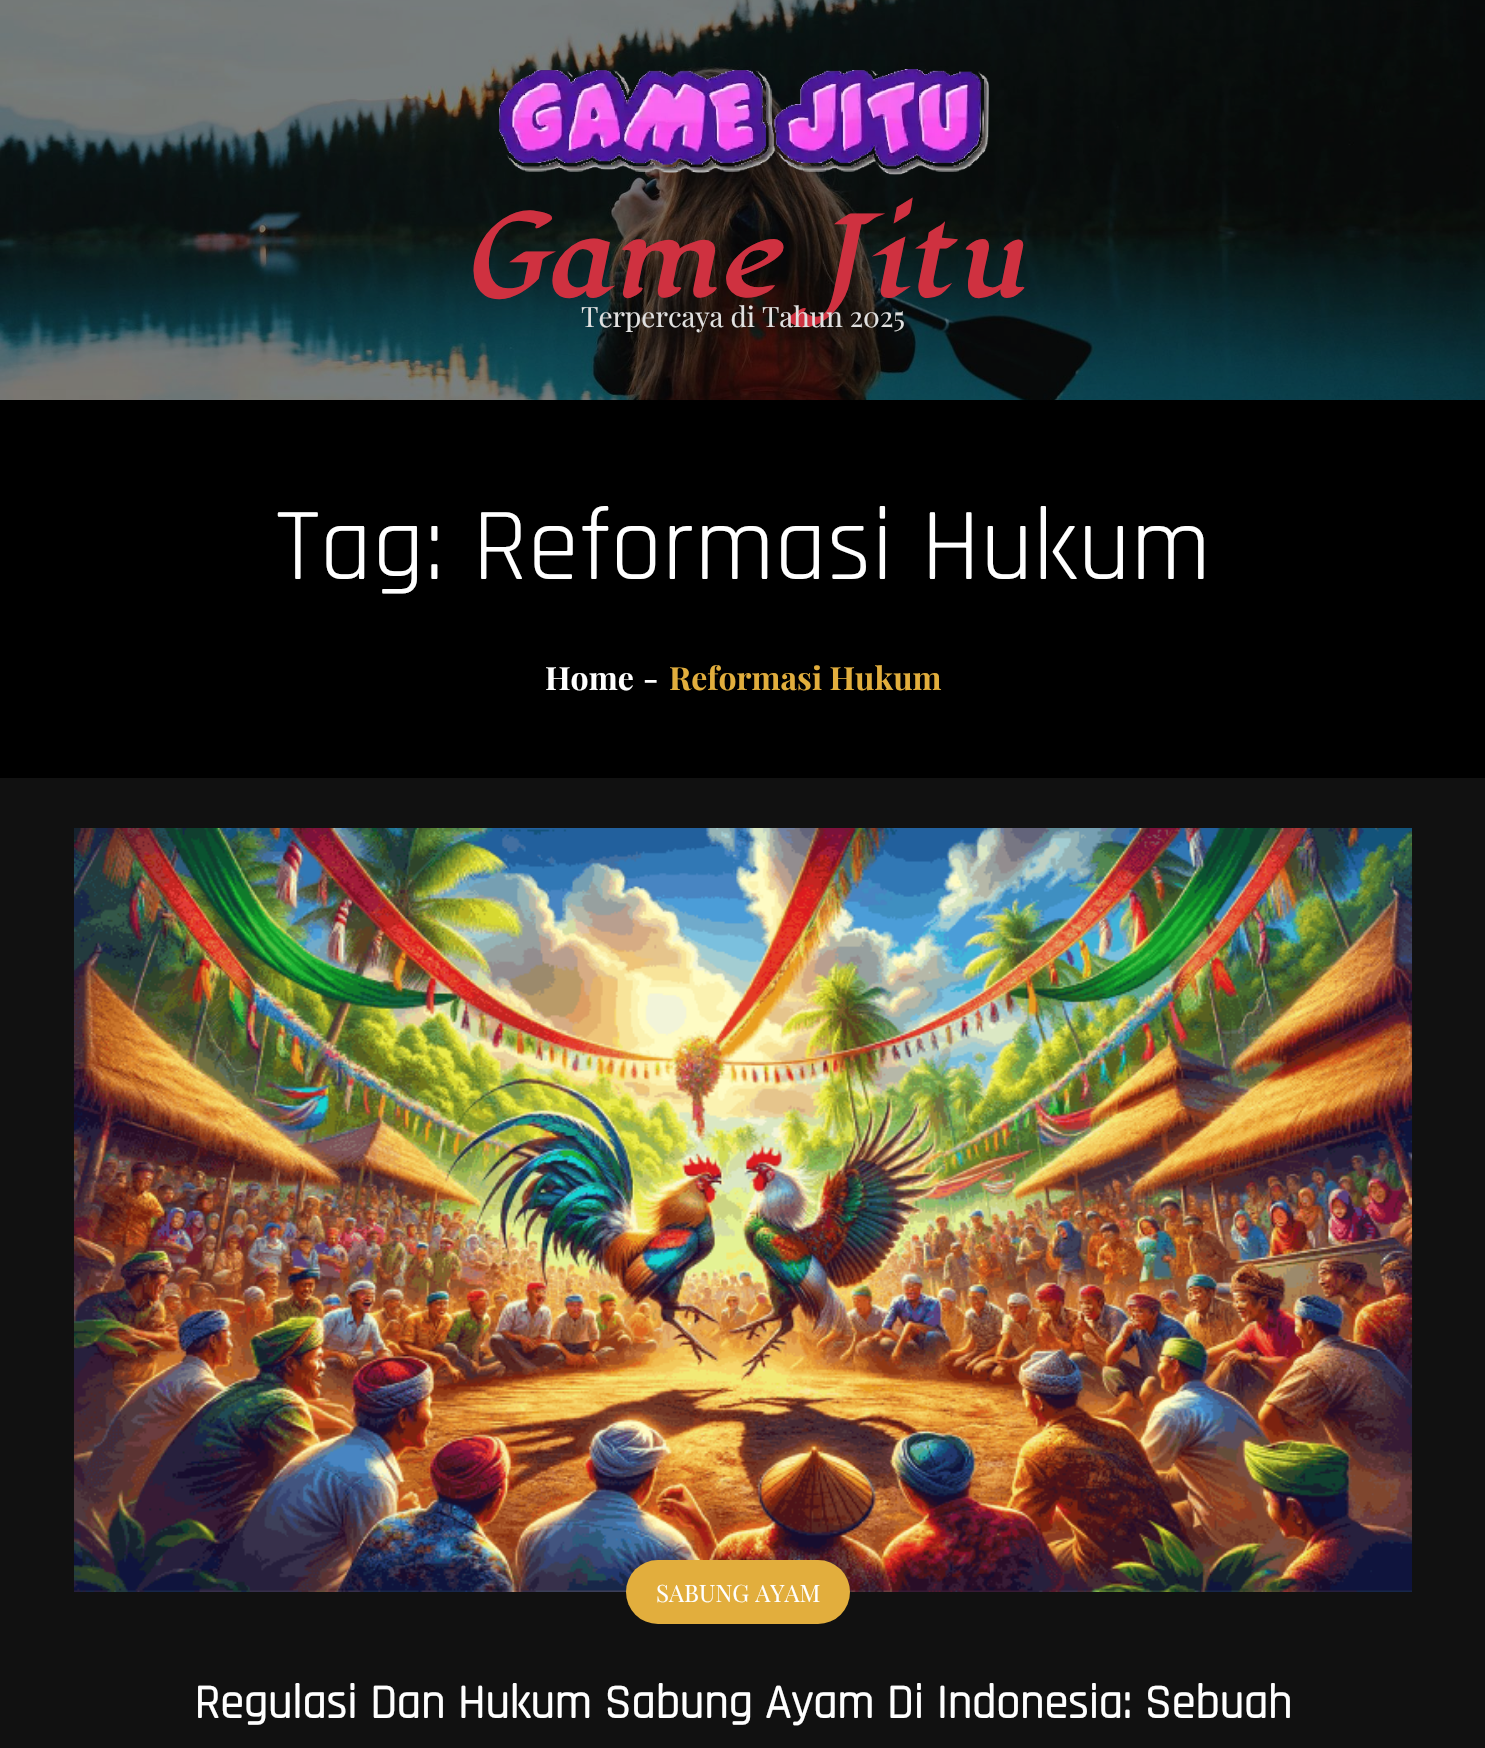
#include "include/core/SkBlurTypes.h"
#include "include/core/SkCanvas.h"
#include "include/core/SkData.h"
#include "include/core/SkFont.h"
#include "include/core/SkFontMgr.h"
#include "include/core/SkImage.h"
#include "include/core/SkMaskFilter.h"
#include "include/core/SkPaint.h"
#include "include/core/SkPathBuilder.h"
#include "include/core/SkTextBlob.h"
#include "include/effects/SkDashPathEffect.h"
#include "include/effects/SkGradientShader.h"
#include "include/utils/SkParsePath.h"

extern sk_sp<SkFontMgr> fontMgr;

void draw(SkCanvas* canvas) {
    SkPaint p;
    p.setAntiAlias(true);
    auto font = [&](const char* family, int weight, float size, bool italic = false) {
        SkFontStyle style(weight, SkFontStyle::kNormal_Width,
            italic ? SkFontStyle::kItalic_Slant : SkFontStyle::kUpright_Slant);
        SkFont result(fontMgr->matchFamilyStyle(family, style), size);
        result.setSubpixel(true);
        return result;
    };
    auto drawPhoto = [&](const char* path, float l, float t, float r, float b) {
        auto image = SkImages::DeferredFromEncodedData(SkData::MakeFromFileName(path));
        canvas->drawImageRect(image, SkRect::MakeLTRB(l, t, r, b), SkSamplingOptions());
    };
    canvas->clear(0xFF111111);
    drawPhoto("media/1.png", 0, 0, 1485, 400);
    drawPhoto("media/2.png", 499, 69, 989, 175);
    auto font1 = font("Lugrasimo", 700, 104);
    p.setColor(0xFFCF3140);
    canvas->drawString("Game Jitu", 463, 297, font1, p);
    auto font2 = font("Playfair Display", 400, 28);
    p.setColor(0xFFE1E1E1);
    canvas->drawString("Terpercaya di Tahun 2025", 581, 327, font2, p);
    p.setColor(0xFF000000);
    canvas->drawRect(SkRect::MakeLTRB(0, 400, 1485, 778), p);
    auto font3 = font("Rajdhani", 400, 104);
    p.setColor(0xFFFFFFFF);
    canvas->drawString("Tag: Reformasi Hukum", 276, 579, font3, p);
    auto font4 = font("Playfair Display", 700, 32);
    canvas->drawString("Home", 545, 690, font4, p);
    canvas->drawString("-", 643, 690, font4, p);
    p.setColor(0xFFE2AE3D);
    canvas->drawString("Reformasi Hukum", 669, 690, font4, p);
    drawPhoto("media/3.png", 74, 828, 1412, 1592);
    canvas->drawRoundRect(SkRect::MakeLTRB(626, 1560, 850, 1624), 32, 32, p);
    auto font5 = font("Playfair Display", 400, 24);
    p.setColor(0xFFFFFFFF);
    canvas->drawString("SABUNG AYAM", 656, 1602, font5, p);
    auto font6 = font("Rajdhani", 700, 48);
    canvas->drawString("Regulasi Dan Hukum Sabung Ayam Di Indonesia: Sebuah", 194, 1718, font6, p);
}
